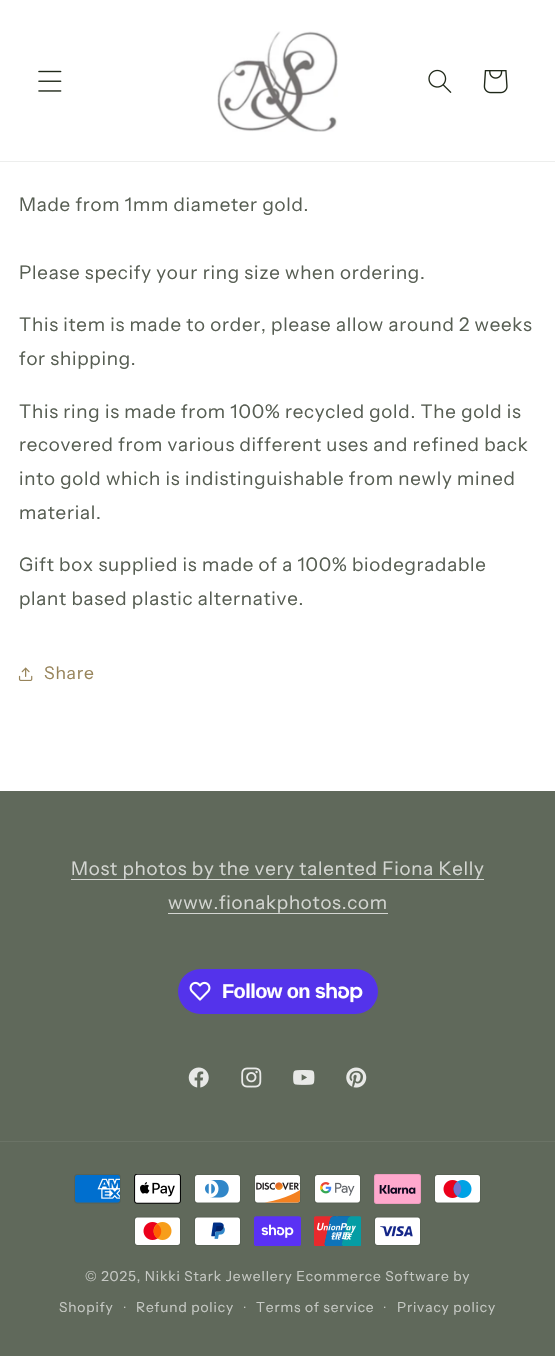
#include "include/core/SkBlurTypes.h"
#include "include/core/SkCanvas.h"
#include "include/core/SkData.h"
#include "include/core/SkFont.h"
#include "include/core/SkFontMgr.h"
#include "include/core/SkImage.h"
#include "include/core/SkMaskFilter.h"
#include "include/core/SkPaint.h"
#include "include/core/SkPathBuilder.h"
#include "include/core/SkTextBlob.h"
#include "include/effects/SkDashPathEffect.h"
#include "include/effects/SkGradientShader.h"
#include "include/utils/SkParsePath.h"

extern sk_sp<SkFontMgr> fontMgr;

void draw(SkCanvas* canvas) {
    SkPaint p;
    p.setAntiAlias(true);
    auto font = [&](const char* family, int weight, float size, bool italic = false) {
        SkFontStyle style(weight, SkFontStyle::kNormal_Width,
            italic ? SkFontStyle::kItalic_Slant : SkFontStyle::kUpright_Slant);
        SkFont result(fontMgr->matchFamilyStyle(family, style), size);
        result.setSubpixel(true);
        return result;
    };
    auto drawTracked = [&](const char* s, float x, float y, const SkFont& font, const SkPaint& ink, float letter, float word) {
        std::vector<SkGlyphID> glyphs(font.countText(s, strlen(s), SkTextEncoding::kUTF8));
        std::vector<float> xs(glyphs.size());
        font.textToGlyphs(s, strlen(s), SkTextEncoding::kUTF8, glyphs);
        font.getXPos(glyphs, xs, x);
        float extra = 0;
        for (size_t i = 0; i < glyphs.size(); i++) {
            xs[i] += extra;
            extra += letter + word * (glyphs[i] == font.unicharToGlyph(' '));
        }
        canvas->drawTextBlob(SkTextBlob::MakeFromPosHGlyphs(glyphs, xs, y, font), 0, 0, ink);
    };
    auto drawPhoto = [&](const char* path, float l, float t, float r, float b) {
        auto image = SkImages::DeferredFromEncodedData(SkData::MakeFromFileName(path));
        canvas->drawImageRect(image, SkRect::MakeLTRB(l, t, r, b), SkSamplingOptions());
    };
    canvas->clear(0xFFFFFFFF);
    p.setColor(0xFFEDEEED);
    canvas->drawRect(SkRect::MakeLTRB(0, 161, 555, 162), p);
    drawPhoto("media/1.png", 38, 70, 62, 92);
    drawPhoto("media/2.png", 217, 31, 338, 132);
    drawPhoto("media/3.png", 428, 69, 452, 93);
    drawPhoto("media/4.png", 483, 70, 508, 94);
    auto font1 = font("Instrument Sans", 400, 18.75f);
    p.setColor(0xFF575E53);
    {
        const struct { const char* s; float x, y; } items[] = {
            {"Made from 1mm diameter gold.", 19, 211},
            {"Please specify your ring size when ordering.", 19, 279},
            {"This item is made to order, please allow around 2 weeks", 19, 331},
            {"for shipping.", 19, 365},
            {"This ring is made from 100% recycled gold. The gold is", 19, 418},
            {"recovered from various different uses and refined back", 19, 451},
            {"into gold which is indistinguishable from newly mined", 19, 485},
            {"material.", 19, 519},
            {"Gift box supplied is made of a 100% biodegradable", 19, 571},
            {"plant based plastic alternative.", 19, 605},
        };
        for (auto [s, x, y] : items) {
            drawTracked(s, x, y, font1, p, 0.75f, 0);
        }
    }
    drawPhoto("media/5.png", 18, 667, 33, 681);
    auto font2 = font("Instrument Sans", 400, 17.5f);
    p.setColor(0xFF97845B);
    drawTracked("Share", 44, 679, font2, p, 0.75f, 0);
    p.setColor(0xFF60695B);
    canvas->drawRect(SkRect::MakeLTRB(0, 791, 555, 1356), p);
    p.setColor(0xFFD4D6D2);
    drawTracked("Most photos by the very talented Fiona Kelly", 71, 875, font1, p, 0.75f, 0);
    canvas->drawRect(SkRect::MakeLTRB(71, 879, 484, 880), p);
    drawTracked("www.fionakphotos.com", 168, 909, font1, p, 0.75f, 0);
    canvas->drawRect(SkRect::MakeLTRB(168, 913, 388, 914), p);
    p.setColor(0xFF5433EB);
    canvas->drawRoundRect(SkRect::MakeLTRB(178, 969, 378, 1014), 22.5f, 22.5f, p);
    drawPhoto("media/6.png", 189, 981, 211, 1001);
    auto font3 = font("Liberation Sans", 700, 20);
    p.setColor(0xFFFFFFFF);
    drawTracked("Follow on", 222, 998, font3, p, -0.6f, 0);
    drawPhoto("media/7.png", 315, 983, 363, 1003);
    drawPhoto("media/8.png", 188, 1067, 209, 1088);
    drawPhoto("media/9.png", 241, 1067, 262, 1088);
    drawPhoto("media/10.png", 293, 1070, 315, 1085);
    drawPhoto("media/11.png", 346, 1067, 367, 1088);
    p.setColor(0xFF6B7366);
    canvas->drawRect(SkRect::MakeLTRB(0, 1141, 555, 1142), p);
    drawPhoto("media/12.png", 74, 1174, 121, 1204);
    drawPhoto("media/13.png", 134, 1174, 181, 1204);
    drawPhoto("media/14.png", 194, 1174, 241, 1204);
    drawPhoto("media/15.png", 254, 1174, 301, 1204);
    drawPhoto("media/16.png", 314, 1174, 361, 1204);
    drawPhoto("media/17.png", 374, 1174, 421, 1204);
    drawPhoto("media/18.png", 434, 1174, 481, 1204);
    drawPhoto("media/19.png", 134, 1216, 181, 1246);
    drawPhoto("media/20.png", 194, 1216, 241, 1246);
    drawPhoto("media/21.png", 254, 1216, 301, 1246);
    drawPhoto("media/22.png", 314, 1216, 361, 1246);
    drawPhoto("media/23.png", 374, 1216, 421, 1246);
    auto font4 = font("Instrument Sans", 400, 13.75f);
    p.setColor(0xFFC6C9C4);
    drawTracked("© 2025, Nikki Stark Jewellery Ecommerce Software by", 85, 1281, font4, p, 0.88f, 0);
    drawTracked("Shopify", 59, 1312, font4, p, 0.88f, 0);
    auto font5 = font("Instrument Sans", 400, 12);
    drawTracked("·", 124, 1312, font5, p, 0.88f, 0);
    drawTracked("Refund policy", 136, 1312, font4, p, 0.88f, 0);
    drawTracked("·", 244, 1312, font5, p, 0.88f, 0);
    drawTracked("Terms of service", 256, 1312, font4, p, 0.88f, 0);
    drawTracked("·", 384, 1312, font5, p, 0.88f, 0);
    drawTracked("Privacy policy", 397, 1312, font4, p, 0.88f, 0);
}
